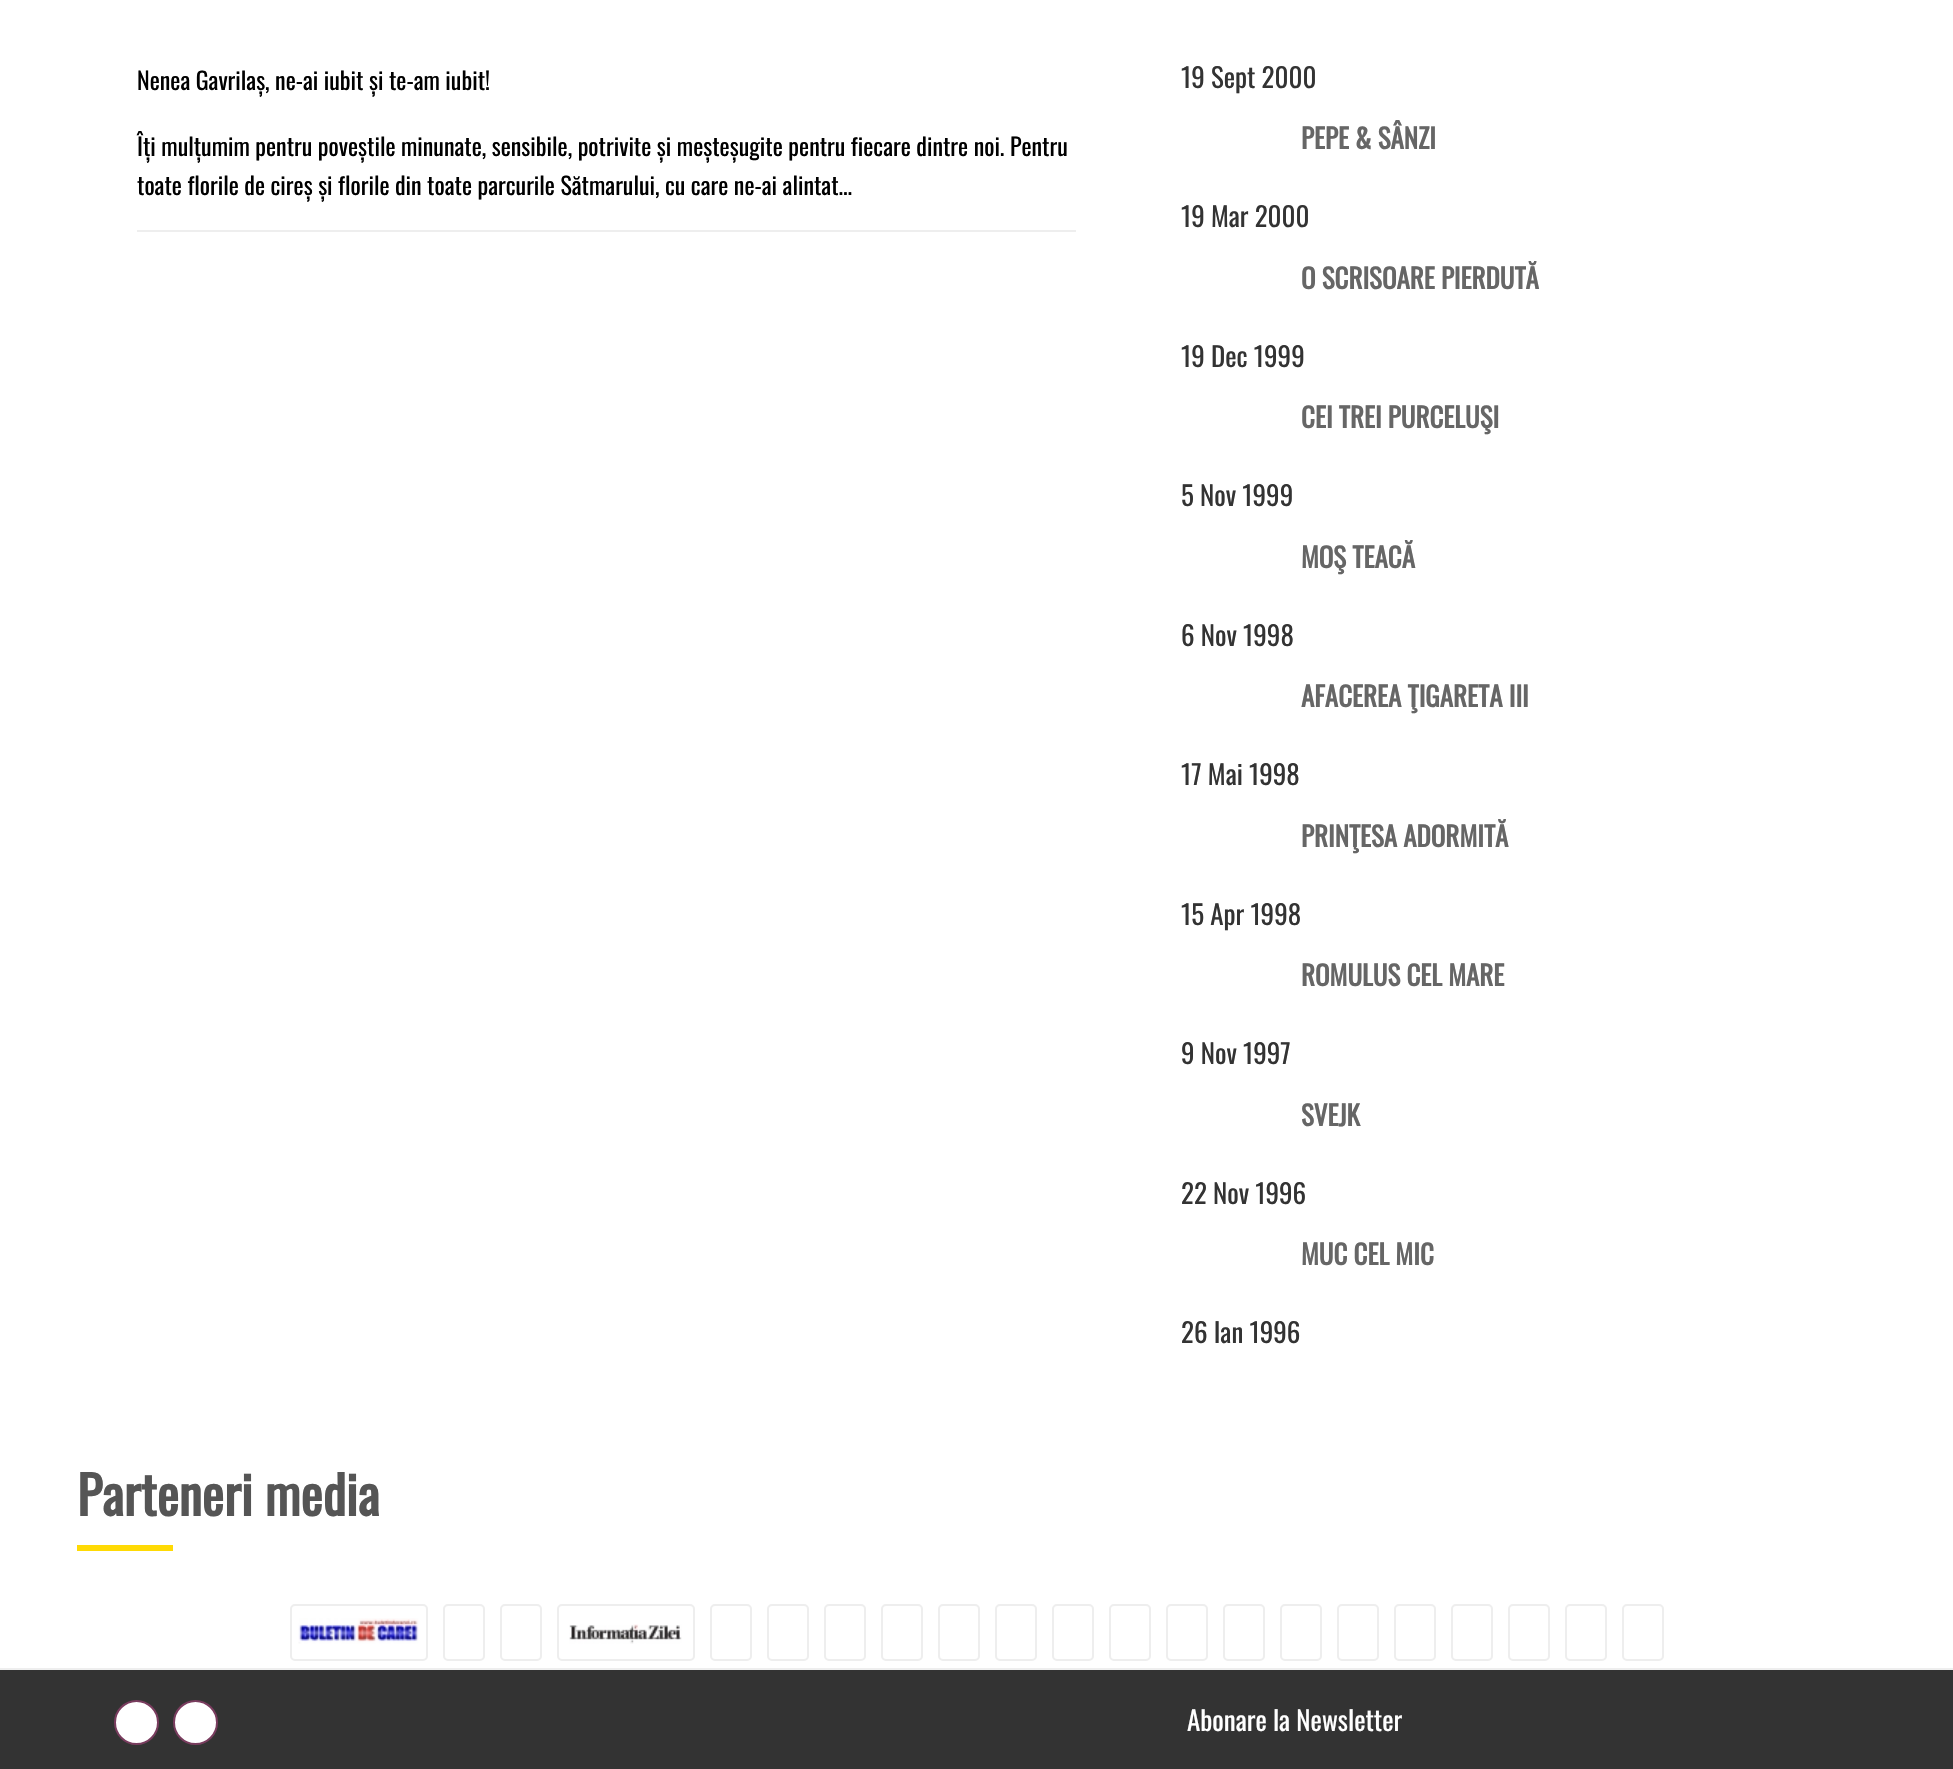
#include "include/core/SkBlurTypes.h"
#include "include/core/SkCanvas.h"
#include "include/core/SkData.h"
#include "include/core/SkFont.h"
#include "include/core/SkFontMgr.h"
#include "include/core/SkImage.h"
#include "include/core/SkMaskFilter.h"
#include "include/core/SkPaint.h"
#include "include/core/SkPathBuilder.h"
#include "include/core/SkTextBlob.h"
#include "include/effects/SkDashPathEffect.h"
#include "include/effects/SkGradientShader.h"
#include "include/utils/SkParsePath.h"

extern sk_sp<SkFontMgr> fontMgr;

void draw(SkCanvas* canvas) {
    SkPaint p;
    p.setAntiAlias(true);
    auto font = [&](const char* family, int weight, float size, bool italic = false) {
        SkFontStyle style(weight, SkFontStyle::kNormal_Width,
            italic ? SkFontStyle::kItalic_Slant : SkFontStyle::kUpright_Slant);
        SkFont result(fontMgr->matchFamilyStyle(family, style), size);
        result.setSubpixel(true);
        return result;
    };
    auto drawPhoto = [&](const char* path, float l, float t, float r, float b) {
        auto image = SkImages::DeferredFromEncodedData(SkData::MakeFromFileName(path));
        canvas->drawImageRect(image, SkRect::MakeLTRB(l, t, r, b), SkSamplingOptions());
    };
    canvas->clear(0xFFFFFFFF);
    auto font1 = font("Oswald", 400, 24);
    p.setColor(0xFF000000);
    {
        const struct { const char* s; float x, y; } items[] = {
            {"Nenea Gavrilaș, ne-ai iubit și te-am iubit!", 137, 90},
            {"Îți mulțumim pentru poveștile minunate, sensibile, potrivite și meșteșugite pentru fiecare dintre noi. Pentru", 137, 156},
            {"toate florile de cireș și florile din toate parcurile Sătmarului, cu care ne-ai alintat...", 137, 195},
        };
        for (auto [s, x, y] : items) {
            canvas->drawString(s, x, y, font1, p);
        }
    }
    p.setColor(0xFFEEEEEE);
    canvas->drawRect(SkRect::MakeLTRB(137, 230, 1076, 232), p);
    auto font2 = font("Oswald", 400, 27);
    p.setColor(0xFF333333);
    canvas->drawString("19 Sept 2000", 1181, 88, font2, p);
    auto font3 = font("Oswald", 700, 27);
    p.setColor(0xFF666666);
    canvas->drawString("PEPE & SÂNZI", 1301, 149, font3, p);
    p.setColor(0xFF333333);
    canvas->drawString("19 Mar 2000", 1181, 227, font2, p);
    p.setColor(0xFF666666);
    canvas->drawString("O SCRISOARE PIERDUTĂ", 1301, 289, font3, p);
    p.setColor(0xFF333333);
    canvas->drawString("19 Dec 1999", 1181, 367, font2, p);
    p.setColor(0xFF666666);
    canvas->drawString("CEI TREI PURCELUŞI", 1301, 428, font3, p);
    p.setColor(0xFF333333);
    canvas->drawString("5 Nov 1999", 1181, 506, font2, p);
    p.setColor(0xFF666666);
    canvas->drawString("MOŞ TEACĂ", 1301, 568, font3, p);
    p.setColor(0xFF333333);
    canvas->drawString("6 Nov 1998", 1181, 646, font2, p);
    p.setColor(0xFF666666);
    canvas->drawString("AFACEREA ŢIGARETA III", 1301, 707, font3, p);
    p.setColor(0xFF333333);
    canvas->drawString("17 Mai 1998", 1181, 785, font2, p);
    p.setColor(0xFF666666);
    canvas->drawString("PRINŢESA ADORMITĂ", 1301, 847, font3, p);
    p.setColor(0xFF333333);
    canvas->drawString("15 Apr 1998", 1181, 925, font2, p);
    p.setColor(0xFF666666);
    canvas->drawString("ROMULUS CEL MARE", 1301, 986, font3, p);
    p.setColor(0xFF333333);
    canvas->drawString("9 Nov 1997", 1181, 1064, font2, p);
    p.setColor(0xFF666666);
    canvas->drawString("SVEJK", 1301, 1126, font3, p);
    p.setColor(0xFF333333);
    canvas->drawString("22 Nov 1996", 1181, 1204, font2, p);
    p.setColor(0xFF666666);
    canvas->drawString("MUC CEL MIC", 1301, 1265, font3, p);
    p.setColor(0xFF333333);
    canvas->drawString("26 Ian 1996", 1181, 1343, font2, p);
    auto font4 = font("Oswald", 700, 52.5f);
    p.setColor(0xFF555555);
    canvas->drawString("Parteneri media", 77, 1516, font4, p);
    p.setColor(0xFFFFDA04);
    canvas->drawRect(SkRect::MakeLTRB(77, 1545, 173, 1551), p);
    p.setStyle(SkPaint::kStroke_Style);
    p.setStrokeWidth(2);
    p.setColor(0xFFEEEEEE);
    canvas->drawRoundRect(SkRect::MakeLTRB(291, 1605, 427, 1660), 4, 4, p);
    drawPhoto("media/1.png", 298, 1618, 419, 1644);
    canvas->drawRoundRect(SkRect::MakeLTRB(444, 1605, 484, 1660), 4, 4, p);
    canvas->drawRoundRect(SkRect::MakeLTRB(501, 1605, 541, 1660), 4, 4, p);
    canvas->drawRoundRect(SkRect::MakeLTRB(558, 1605, 694, 1660), 4, 4, p);
    drawPhoto("media/2.png", 569, 1624, 682, 1644);
    canvas->drawRoundRect(SkRect::MakeLTRB(711, 1605, 751, 1660), 4, 4, p);
    canvas->drawRoundRect(SkRect::MakeLTRB(768, 1605, 808, 1660), 4, 4, p);
    canvas->drawRoundRect(SkRect::MakeLTRB(825, 1605, 865, 1660), 4, 4, p);
    canvas->drawRoundRect(SkRect::MakeLTRB(882, 1605, 922, 1660), 4, 4, p);
    canvas->drawRoundRect(SkRect::MakeLTRB(939, 1605, 979, 1660), 4, 4, p);
    canvas->drawRoundRect(SkRect::MakeLTRB(996, 1605, 1036, 1660), 4, 4, p);
    canvas->drawRoundRect(SkRect::MakeLTRB(1053, 1605, 1093, 1660), 4, 4, p);
    canvas->drawRoundRect(SkRect::MakeLTRB(1110, 1605, 1150, 1660), 4, 4, p);
    canvas->drawRoundRect(SkRect::MakeLTRB(1167, 1605, 1207, 1660), 4, 4, p);
    canvas->drawRoundRect(SkRect::MakeLTRB(1224, 1605, 1264, 1660), 4, 4, p);
    canvas->drawRoundRect(SkRect::MakeLTRB(1281, 1605, 1321, 1660), 4, 4, p);
    canvas->drawRoundRect(SkRect::MakeLTRB(1338, 1605, 1378, 1660), 4, 4, p);
    canvas->drawRoundRect(SkRect::MakeLTRB(1395, 1605, 1435, 1660), 4, 4, p);
    canvas->drawRoundRect(SkRect::MakeLTRB(1452, 1605, 1492, 1660), 4, 4, p);
    canvas->drawRoundRect(SkRect::MakeLTRB(1509, 1605, 1549, 1660), 4, 4, p);
    canvas->drawRoundRect(SkRect::MakeLTRB(1566, 1605, 1606, 1660), 4, 4, p);
    canvas->drawRoundRect(SkRect::MakeLTRB(1623, 1605, 1663, 1660), 4, 4, p);
    p.setStyle(SkPaint::kFill_Style);
    p.setColor(0xFF333333);
    canvas->drawRect(SkRect::MakeLTRB(0, 1670, 1953, 1769), p);
    p.setColor(0xFFEEEEEE);
    canvas->drawRect(SkRect::MakeLTRB(0, 1668, 1953, 1670), p);
    p.setColor(0xFFFFFFFF);
    canvas->drawCircle(136.5f, 1722.5f, 21.5f, p);
    p.setStyle(SkPaint::kStroke_Style);
    p.setColor(0xFF793C5E);
    canvas->drawCircle(136.5f, 1722.5f, 21.5f, p);
    p.setStyle(SkPaint::kFill_Style);
    p.setColor(0xFFFFFFFF);
    canvas->drawCircle(195.5f, 1722.5f, 21.5f, p);
    p.setStyle(SkPaint::kStroke_Style);
    p.setColor(0xFF793C5E);
    canvas->drawCircle(195.5f, 1722.5f, 21.5f, p);
    p.setStyle(SkPaint::kFill_Style);
    p.setColor(0xFFFFFFFF);
    canvas->drawString("Abonare la Newsletter", 1187, 1731, font2, p);
}
